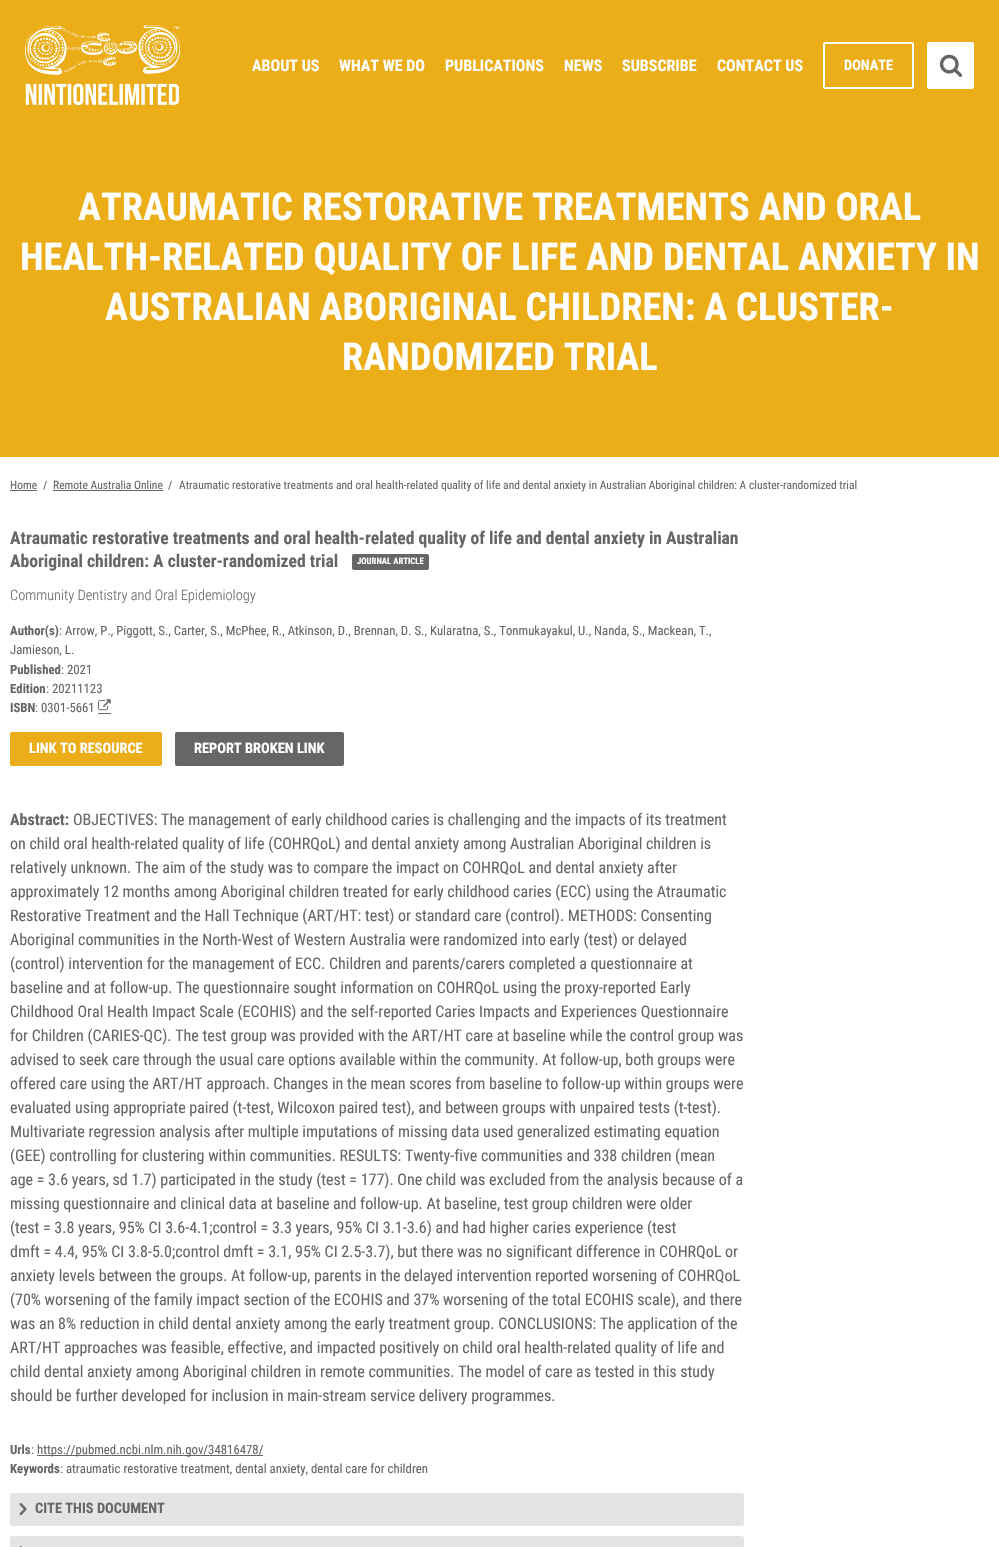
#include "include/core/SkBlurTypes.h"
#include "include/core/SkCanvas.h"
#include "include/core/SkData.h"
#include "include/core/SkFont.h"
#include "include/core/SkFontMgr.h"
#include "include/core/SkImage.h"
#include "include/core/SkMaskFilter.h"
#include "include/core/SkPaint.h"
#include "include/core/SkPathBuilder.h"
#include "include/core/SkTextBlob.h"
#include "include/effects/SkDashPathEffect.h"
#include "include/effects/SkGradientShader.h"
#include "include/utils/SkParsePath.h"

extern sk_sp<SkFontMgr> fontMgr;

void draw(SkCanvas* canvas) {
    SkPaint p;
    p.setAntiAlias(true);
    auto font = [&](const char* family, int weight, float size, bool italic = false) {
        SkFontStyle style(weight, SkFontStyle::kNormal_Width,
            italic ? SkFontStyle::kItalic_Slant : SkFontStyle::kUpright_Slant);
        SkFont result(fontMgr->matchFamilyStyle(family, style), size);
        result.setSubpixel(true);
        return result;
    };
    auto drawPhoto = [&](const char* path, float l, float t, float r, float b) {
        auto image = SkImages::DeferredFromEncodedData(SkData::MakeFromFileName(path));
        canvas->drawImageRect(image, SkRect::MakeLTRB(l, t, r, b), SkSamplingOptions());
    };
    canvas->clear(0xFFFFFFFF);
    p.setColor(0xFFEBAD18);
    canvas->drawRect(SkRect::MakeLTRB(0, 0, 999, 457), p);
    drawPhoto("media/1.png", 25, 25, 180, 105);
    auto font1 = font("Roboto Condensed", 700, 16);
    p.setColor(0xFFFFFFFF);
    {
        const struct { const char* s; float x, y; } items[] = {
            {"ABOUT US", 252, 71},
            {"WHAT WE DO", 339, 71},
            {"PUBLICATIONS", 445, 71},
            {"NEWS", 564, 71},
            {"SUBSCRIBE", 622, 71},
            {"CONTACT US", 717, 71},
        };
        for (auto [s, x, y] : items) {
            canvas->drawString(s, x, y, font1, p);
        }
    }
    p.setStyle(SkPaint::kStroke_Style);
    p.setStrokeWidth(2);
    canvas->drawRoundRect(SkRect::MakeLTRB(824, 43, 913, 88), 1, 1, p);
    auto font2 = font("Roboto Condensed", 700, 14.4f);
    p.setStyle(SkPaint::kFill_Style);
    canvas->drawString("DONATE", 844, 70, font2, p);
    canvas->drawRoundRect(SkRect::MakeLTRB(927, 42, 974, 89), 2, 2, p);
    drawPhoto("media/2.png", 939, 54, 963, 77);
    auto font3 = font("Roboto Condensed", 700, 38.4f);
    {
        const struct { const char* s; float x, y; } items[] = {
            {"ATRAUMATIC RESTORATIVE TREATMENTS AND ORAL", 78, 220},
            {"HEALTH-RELATED QUALITY OF LIFE AND DENTAL ANXIETY IN", 20, 270},
            {"AUSTRALIAN ABORIGINAL CHILDREN: A CLUSTER-", 105, 320},
            {"RANDOMIZED TRIAL", 342, 370},
        };
        for (auto [s, x, y] : items) {
            canvas->drawString(s, x, y, font3, p);
        }
    }
    auto font4 = font("Roboto Condensed", 400, 11.55f);
    p.setColor(0xFF666666);
    canvas->drawString("Home", 10, 489, font4, p);
    canvas->drawRect(SkRect::MakeLTRB(10, 490, 37, 491), p);
    canvas->drawString("/", 43, 489, font4, p);
    canvas->drawString("Remote Australia Online", 53, 489, font4, p);
    canvas->drawRect(SkRect::MakeLTRB(53, 490, 163, 491), p);
    canvas->drawString("/", 168, 489, font4, p);
    canvas->drawString("Atraumatic restorative treatments and oral health-related quality of life and dental anxiety in Australian Aboriginal children: A cluster-randomized trial", 179, 489, font4, p);
    auto font5 = font("Roboto Condensed", 700, 17.6f);
    canvas->drawString("Atraumatic restorative treatments and oral health-related quality of life and dental anxiety in Australian", 10, 544, font5, p);
    canvas->drawString("Aboriginal children: A cluster-randomized trial", 10, 567, font5, p);
    canvas->drawRoundRect(SkRect::MakeLTRB(352, 554, 429, 570), 2, 2, p);
    auto font6 = font("Roboto Condensed", 700, 8.75f);
    p.setColor(0xFFFFFFFF);
    canvas->drawString("JOURNAL ARTICLE", 357, 564, font6, p);
    auto font7 = font("Roboto Condensed", 300, 14.4f);
    p.setColor(0xFF666666);
    canvas->drawString("Community Dentistry and Oral Epidemiology", 10, 600, font7, p);
    auto font8 = font("Roboto Condensed", 700, 12.8f);
    canvas->drawString("Author(s)", 10, 635, font8, p);
    auto font9 = font("Roboto Condensed", 400, 12.8f);
    canvas->drawString(": Arrow, P., Piggott, S., Carter, S., McPhee, R., Atkinson, D., Brennan, D. S., Kularatna, S., Tonmukayakul, U., Nanda, S., Mackean, T.,", 59, 635, font9, p);
    canvas->drawString("Jamieson, L.", 10, 654, font9, p);
    canvas->drawString("Published", 10, 674, font8, p);
    canvas->drawString(": 2021", 61, 674, font9, p);
    canvas->drawString("Edition", 10, 693, font8, p);
    canvas->drawString(": 20211123", 46, 693, font9, p);
    canvas->drawString("ISBN", 10, 712, font8, p);
    canvas->drawString(": 0301-5661", 35, 712, font9, p);
    drawPhoto("media/3.png", 98, 699, 111, 711);
    canvas->drawRect(SkRect::MakeLTRB(98, 713, 111, 714), p);
    p.setColor(0xFFEBAD18);
    canvas->drawRoundRect(SkRect::MakeLTRB(10, 732, 162, 766), 2, 2, p);
    p.setColor(0xFFFFFFFF);
    canvas->drawString("LINK TO RESOURCE", 29, 753, font2, p);
    p.setColor(0xFF666666);
    canvas->drawRoundRect(SkRect::MakeLTRB(175, 732, 344, 766), 2, 2, p);
    p.setColor(0xFFFFFFFF);
    canvas->drawString("REPORT BROKEN LINK", 194, 753, font2, p);
    p.setColor(0xFF666666);
    canvas->drawString("Abstract:", 10, 825, font1, p);
    auto font10 = font("Roboto Condensed", 400, 16);
    {
        const struct { const char* s; float x, y; } items[] = {
            {"OBJECTIVES: The management of early childhood caries is challenging and the impacts of its treatment", 73, 825},
            {"on child oral health-related quality of life (COHRQoL) and dental anxiety among Australian Aboriginal children is", 10, 849},
            {"relatively unknown. The aim of the study was to compare the impact on COHRQoL and dental anxiety after", 10, 873},
            {"approximately 12 months among Aboriginal children treated for early childhood caries (ECC) using the Atraumatic", 10, 897},
            {"Restorative Treatment and the Hall Technique (ART/HT: test) or standard care (control). METHODS: Consenting", 10, 921},
            {"Aboriginal communities in the North-West of Western Australia were randomized into early (test) or delayed", 10, 945},
            {"(control) intervention for the management of ECC. Children and parents/carers completed a questionnaire at", 10, 969},
            {"baseline and at follow-up. The questionnaire sought information on COHRQoL using the proxy-reported Early", 10, 993},
            {"Childhood Oral Health Impact Scale (ECOHIS) and the self-reported Caries Impacts and Experiences Questionnaire", 10, 1017},
            {"for Children (CARIES-QC). The test group was provided with the ART/HT care at baseline while the control group was", 10, 1041},
            {"advised to seek care through the usual care options available within the community. At follow-up, both groups were", 10, 1065},
            {"offered care using the ART/HT approach. Changes in the mean scores from baseline to follow-up within groups were", 10, 1089},
            {"evaluated using appropriate paired (t-test, Wilcoxon paired test), and between groups with unpaired tests (t-test).", 10, 1113},
            {"Multivariate regression analysis after multiple imputations of missing data used generalized estimating equation", 10, 1137},
            {"(GEE) controlling for clustering within communities. RESULTS: Twenty-five communities and 338 children (mean", 10, 1161},
            {"age = 3.6 years, sd 1.7) participated in the study (test = 177). One child was excluded from the analysis because of a", 10, 1185},
            {"missing questionnaire and clinical data at baseline and follow-up. At baseline, test group children were older", 10, 1209},
            {"(test = 3.8 years, 95% CI 3.6-4.1;control = 3.3 years, 95% CI 3.1-3.6) and had higher caries experience (test", 10, 1233},
            {"dmft = 4.4, 95% CI 3.8-5.0;control dmft = 3.1, 95% CI 2.5-3.7), but there was no significant difference in COHRQoL or", 10, 1257},
            {"anxiety levels between the groups. At follow-up, parents in the delayed intervention reported worsening of COHRQoL", 10, 1281},
            {"(70% worsening of the family impact section of the ECOHIS and 37% worsening of the total ECOHIS scale), and there", 10, 1305},
            {"was an 8% reduction in child dental anxiety among the early treatment group. CONCLUSIONS: The application of the", 10, 1329},
            {"ART/HT approaches was feasible, effective, and impacted positively on child oral health-related quality of life and", 10, 1353},
            {"child dental anxiety among Aboriginal children in remote communities. The model of care as tested in this study", 10, 1377},
            {"should be further developed for inclusion in main-stream service delivery programmes.", 10, 1401},
        };
        for (auto [s, x, y] : items) {
            canvas->drawString(s, x, y, font10, p);
        }
    }
    canvas->drawString("Urls", 10, 1454, font8, p);
    canvas->drawString(":", 31, 1454, font9, p);
    canvas->drawRect(SkRect::MakeLTRB(37, 1455, 263, 1456), p);
    canvas->drawString("https://pubmed.ncbi.nlm.nih.gov/34816478/", 37, 1454, font9, p);
    canvas->drawString("Keywords", 10, 1473, font8, p);
    canvas->drawString(": atraumatic restorative treatment, dental anxiety, dental care for children", 60, 1473, font9, p);
    p.setColor(0xFFE4E4E4);
    canvas->drawRoundRect(SkRect::MakeLTRB(10, 1493, 744, 1526), 3, 3, p);
    drawPhoto("media/4.png", 19, 1503, 27, 1516);
    p.setColor(0xFF666666);
    canvas->drawString("CITE THIS DOCUMENT", 35, 1513, font2, p);
    p.setColor(0xFFE4E4E4);
    canvas->drawRoundRect(SkRect::MakeLTRB(10, 1536, 744, 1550), 3, 3, p);
    drawPhoto("media/5.png", 19, 1546, 22, 1547);
}
